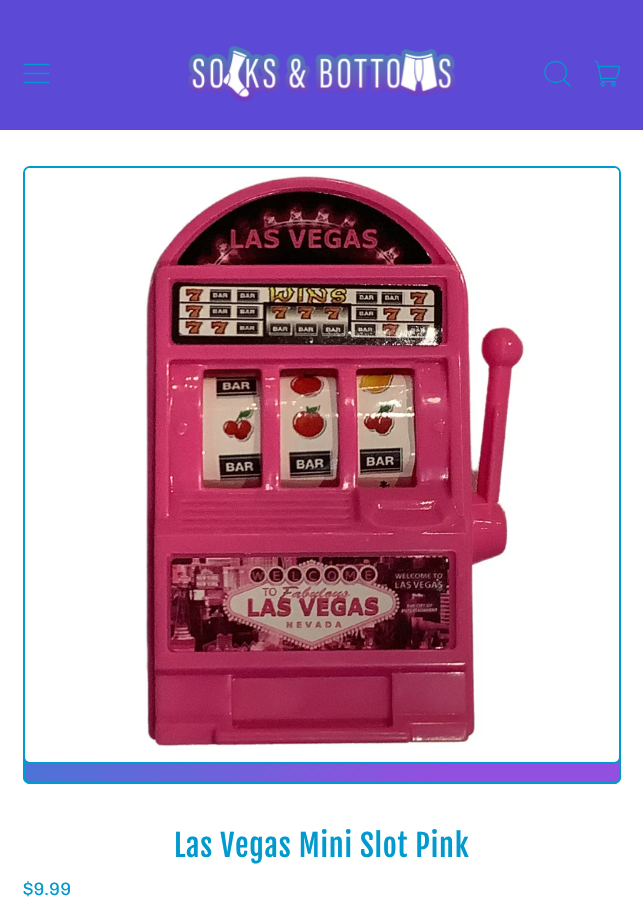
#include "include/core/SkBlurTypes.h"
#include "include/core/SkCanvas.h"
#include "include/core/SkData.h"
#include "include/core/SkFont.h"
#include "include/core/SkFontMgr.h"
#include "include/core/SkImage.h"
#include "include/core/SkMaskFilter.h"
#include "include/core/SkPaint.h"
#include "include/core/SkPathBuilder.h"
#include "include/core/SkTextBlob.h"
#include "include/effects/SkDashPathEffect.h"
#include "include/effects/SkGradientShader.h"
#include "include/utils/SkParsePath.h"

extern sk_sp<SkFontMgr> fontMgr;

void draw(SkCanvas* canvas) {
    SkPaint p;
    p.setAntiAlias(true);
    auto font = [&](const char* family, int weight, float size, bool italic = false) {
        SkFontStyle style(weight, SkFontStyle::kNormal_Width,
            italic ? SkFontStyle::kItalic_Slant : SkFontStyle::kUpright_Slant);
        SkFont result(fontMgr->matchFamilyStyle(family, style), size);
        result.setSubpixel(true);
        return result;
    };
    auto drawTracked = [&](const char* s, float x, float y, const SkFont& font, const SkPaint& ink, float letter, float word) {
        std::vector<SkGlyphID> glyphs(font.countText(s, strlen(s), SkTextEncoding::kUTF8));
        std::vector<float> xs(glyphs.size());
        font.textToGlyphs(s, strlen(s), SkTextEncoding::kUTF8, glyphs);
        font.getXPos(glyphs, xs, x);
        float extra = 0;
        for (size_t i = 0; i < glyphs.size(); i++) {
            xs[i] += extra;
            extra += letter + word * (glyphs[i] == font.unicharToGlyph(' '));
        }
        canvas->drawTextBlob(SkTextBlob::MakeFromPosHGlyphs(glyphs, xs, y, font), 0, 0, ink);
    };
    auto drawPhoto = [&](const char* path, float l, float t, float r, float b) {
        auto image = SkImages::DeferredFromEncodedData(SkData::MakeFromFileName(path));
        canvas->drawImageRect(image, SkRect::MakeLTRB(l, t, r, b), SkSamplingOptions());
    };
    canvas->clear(0xFFFFFFFF);
    p.setColor(0xFF5C49D6);
    canvas->drawRect(SkRect::MakeLTRB(0, 0, 643, 130), p);
    p.setStyle(SkPaint::kStroke_Style);
    p.setStrokeWidth(1.3f);
    p.setStrokeCap(SkPaint::kRound_Cap);
    p.setStrokeJoin(SkPaint::kRound_Join);
    p.setColor(0xFF009ACE);
    canvas->drawPath(SkPathBuilder().moveTo(49, 82.5f).lineTo(24, 82.5f).moveTo(49, 73.5f).lineTo(24, 73.5f).moveTo(49, 64.5f).lineTo(24, 64.5f).detach(), p);
    drawPhoto("media/1.png", 188, 46, 456, 102);
    canvas->drawPath(SkPathBuilder().moveTo(545, 72).cubicTo(545, 86, 566.5f, 86, 566.5f, 72).cubicTo(566.5f, 58, 545, 58, 545, 72).close().moveTo(570, 86).lineTo(563.5f, 79.5f).detach(), p);
    drawPhoto("media/2.png", 594, 60, 621, 87);
    p.setStyle(SkPaint::kFill_Style);
    {
        const SkColor colors[] = {0xFF009ACE, 0xFF934FDF};
        const float stops[] = {0.11f, 0.84f};
        const SkPoint ends[] = {{25, 188}, {619, 782}};
        p.setShader(SkGradientShader::MakeLinear(ends, colors, stops, 2, SkTileMode::kClamp));
        p.setAlpha(255);
    }
    canvas->drawRect(SkRect::MakeLTRB(25, 758, 619, 782), p);
    p.setStyle(SkPaint::kStroke_Style);
    p.setStrokeWidth(2);
    p.setStrokeCap(SkPaint::kButt_Cap);
    p.setStrokeJoin(SkPaint::kMiter_Join);
    p.setShader(nullptr);
    p.setColor(0xFF009ACE);
    canvas->drawRoundRect(SkRect::MakeLTRB(24, 187, 620, 783), 6, 6, p);
    canvas->drawRoundRect(SkRect::MakeLTRB(24, 187, 620, 783), 6, 6, p);
    canvas->drawRoundRect(SkRect::MakeLTRB(24, 167, 620, 763), 6, 6, p);
    drawPhoto("media/3.png", 25, 168, 619, 762);
    auto font1 = font("Fjalla One", 400, 30.25f);
    p.setStyle(SkPaint::kFill_Style);
    drawTracked("Las Vegas Mini Slot Pink", 174, 857, font1, p, 0.75f, 0);
    auto font2 = font("Chivo", 400, 18);
    canvas->drawString("$9.99", 23, 895, font2, p);
}
